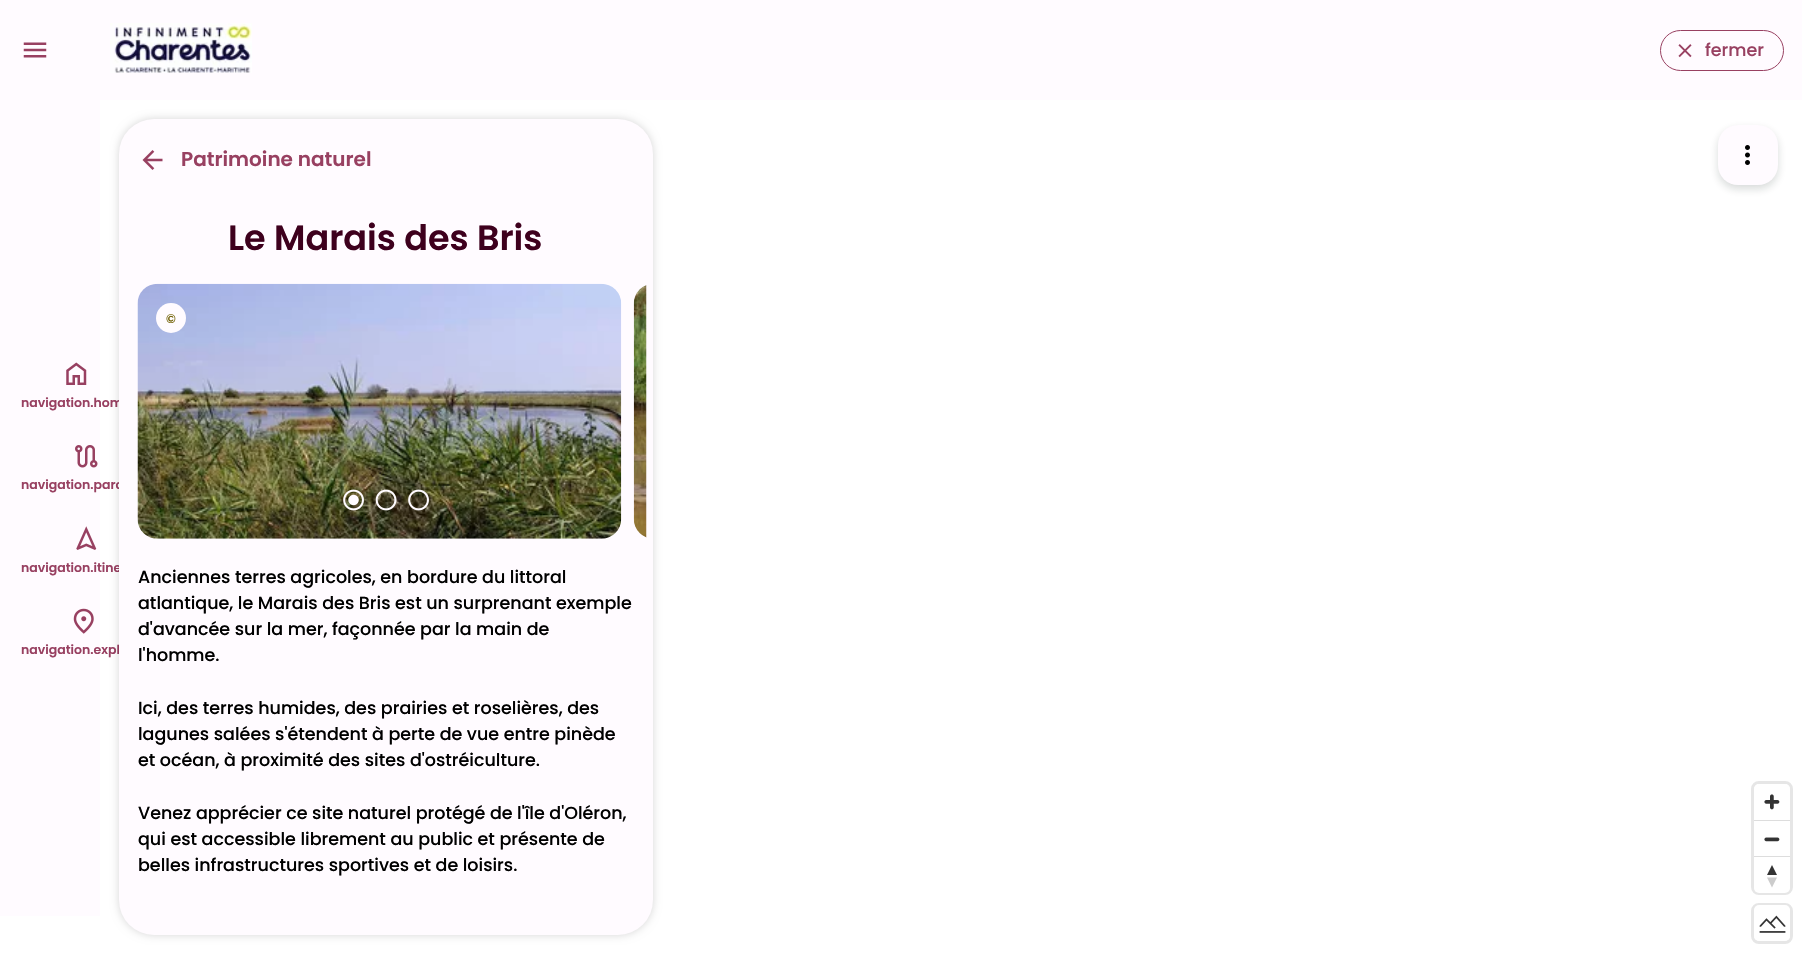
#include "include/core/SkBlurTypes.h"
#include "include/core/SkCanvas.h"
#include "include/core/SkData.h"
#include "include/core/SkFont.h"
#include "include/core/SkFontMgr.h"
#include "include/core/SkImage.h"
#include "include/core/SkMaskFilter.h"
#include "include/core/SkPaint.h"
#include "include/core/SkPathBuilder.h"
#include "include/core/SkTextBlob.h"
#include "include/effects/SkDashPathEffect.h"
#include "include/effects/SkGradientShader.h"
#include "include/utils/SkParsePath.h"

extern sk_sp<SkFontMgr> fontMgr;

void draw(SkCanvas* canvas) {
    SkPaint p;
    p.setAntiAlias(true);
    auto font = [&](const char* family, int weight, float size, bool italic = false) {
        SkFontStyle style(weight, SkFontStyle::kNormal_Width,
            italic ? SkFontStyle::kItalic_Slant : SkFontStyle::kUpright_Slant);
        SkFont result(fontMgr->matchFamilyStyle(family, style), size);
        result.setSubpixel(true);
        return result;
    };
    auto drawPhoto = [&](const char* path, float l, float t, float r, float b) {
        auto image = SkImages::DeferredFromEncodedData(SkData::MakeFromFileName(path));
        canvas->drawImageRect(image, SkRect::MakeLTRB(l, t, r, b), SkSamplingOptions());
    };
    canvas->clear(0xFFFFFFFF);
    p.setColor(0xFFFFFBFF);
    canvas->drawRect(SkRect::MakeLTRB(0, 0, 1802, 100), p);
    drawPhoto("media/1.png", 23, 42, 47, 58);
    drawPhoto("media/2.png", 110, 23, 252, 73);
    p.setStyle(SkPaint::kStroke_Style);
    p.setStrokeWidth(1);
    p.setColor(0xFF984061);
    canvas->drawRoundRect(SkRect::MakeLTRB(1660.5f, 30.5f, 1783.5f, 70.5f), 20, 20, p);
    drawPhoto("media/3.png", 1678, 44, 1692, 58);
    auto font1 = font("Poppins", 500, 17.5f);
    p.setStyle(SkPaint::kFill_Style);
    canvas->drawString("fermer", 1705, 56, font1, p);
    p.setColor(0xFFFFFBFF);
    canvas->drawRect(SkRect::MakeLTRB(0, 100, 100, 916), p);
    drawPhoto("media/4.png", 66, 362, 87, 385);
    auto font2 = font("Poppins", 600, 12.5f);
    p.setColor(0xFF984061);
    canvas->drawString("navigation.hom", 21, 407, font2, p);
    drawPhoto("media/5.png", 75, 445, 98, 468);
    canvas->drawString("navigation.parc", 21, 489, font2, p);
    drawPhoto("media/6.png", 76, 526, 97, 550);
    canvas->drawString("navigation.itine", 21, 572, font2, p);
    drawPhoto("media/7.png", 73, 608, 94, 634);
    canvas->drawString("navigation.expl", 21, 654, font2, p);
    p.setColor(0x29000000);
    p.setMaskFilter(SkMaskFilter::MakeBlur(kNormal_SkBlurStyle, 4));
    canvas->drawRoundRect(SkRect::MakeLTRB(119, 119, 653, 935), 35, 35, p);
    p.setMaskFilter(nullptr);
    p.setColor(0xFFFFFBFF);
    canvas->drawRoundRect(SkRect::MakeLTRB(119, 119, 653, 935), 35, 35, p);
    drawPhoto("media/8.png", 142, 150, 163, 170);
    auto font3 = font("Poppins", 600, 20);
    p.setColor(0xFF984061);
    canvas->drawString("Patrimoine naturel", 181, 166, font3, p);
    auto font4 = font("Poppins", 600, 35);
    p.setColor(0xFF3E001D);
    canvas->drawString("Le Marais des Bris", 228, 250, font4, p);
    drawPhoto("media/9.png", 137, 283, 622, 539);
    p.setColor(0xFFFFFBFF);
    canvas->drawCircle(171, 318, 15, p);
    auto font5 = font("Poppins", 500, 12.5f);
    p.setColor(0xFF6E5E00);
    canvas->drawString("©", 166, 323, font5, p);
    drawPhoto("media/10.png", 633, 285, 647, 538);
    drawPhoto("media/11.png", 343, 489, 364, 511);
    drawPhoto("media/12.png", 375, 489, 397, 511);
    drawPhoto("media/13.png", 408, 489, 429, 511);
    p.setColor(0xFF000000);
    {
        const struct { const char* s; float x, y; } items[] = {
            {"Anciennes terres agricoles, en bordure du littoral", 138, 583},
            {"atlantique, le Marais des Bris est un surprenant exemple", 138, 609},
            {"d'avancée sur la mer, façonnée par la main de", 138, 635},
            {"l'homme.", 138, 661},
            {"Ici, des terres humides, des prairies et roselières, des", 138, 714},
            {"lagunes salées s'étendent à perte de vue entre pinède", 138, 740},
            {"et océan, à proximité des sites d'ostréiculture.", 138, 766},
            {"Venez apprécier ce site naturel protégé de l'île d'Oléron,", 138, 819},
            {"qui est accessible librement au public et présente de", 138, 845},
            {"belles infrastructures sportives et de loisirs.", 138, 871},
        };
        for (auto [s, x, y] : items) {
            canvas->drawString(s, x, y, font1, p);
        }
    }
    p.setColor(0x290D1F1B);
    p.setMaskFilter(SkMaskFilter::MakeBlur(kNormal_SkBlurStyle, 4));
    canvas->drawRoundRect(SkRect::MakeLTRB(1718, 129, 1778, 189), 20, 20, p);
    p.setMaskFilter(nullptr);
    p.setColor(0xFFFFFBFF);
    canvas->drawRoundRect(SkRect::MakeLTRB(1718, 125, 1778, 185), 20, 20, p);
    drawPhoto("media/14.png", 1745, 145, 1750, 165);
    p.setStyle(SkPaint::kStroke_Style);
    p.setStrokeWidth(3);
    p.setColor(0xFFE6E6E6);
    canvas->drawRoundRect(SkRect::MakeLTRB(1752.5f, 782.5f, 1791.5f, 893.5f), 6.5f, 6.5f, p);
    p.setStyle(SkPaint::kFill_Style);
    p.setColor(0xFFFFFFFF);
    canvas->drawRoundRect(SkRect::MakeLTRB(1754, 784, 1790, 893), 5, 5, p);
    drawPhoto("media/15.png", 1764, 794, 1780, 810);
    p.setColor(0xFFDDDDDD);
    canvas->drawRect(SkRect::MakeLTRB(1754, 820, 1790, 821), p);
    drawPhoto("media/16.png", 1764, 837, 1780, 842);
    canvas->drawRect(SkRect::MakeLTRB(1754, 856, 1790, 857), p);
    p.setColor(0xFF333333);
    canvas->drawPath(SkPathBuilder().moveTo(1767, 875).lineTo(1772, 865).lineTo(1777, 875).close().detach(), p);
    p.setColor(0xFFCCCCCC);
    canvas->drawPath(SkPathBuilder().moveTo(1767, 877.5f).lineTo(1772, 887.5f).lineTo(1777, 877.5f).close().detach(), p);
    p.setStyle(SkPaint::kStroke_Style);
    p.setColor(0xFFE6E6E6);
    canvas->drawRoundRect(SkRect::MakeLTRB(1752.5f, 904.5f, 1791.5f, 942.5f), 6.5f, 6.5f, p);
    p.setStyle(SkPaint::kFill_Style);
    p.setColor(0xFFFFFFFF);
    canvas->drawRoundRect(SkRect::MakeLTRB(1754, 905, 1790, 941), 5, 5, p);
    drawPhoto("media/17.png", 1759, 915, 1786, 933);
}
